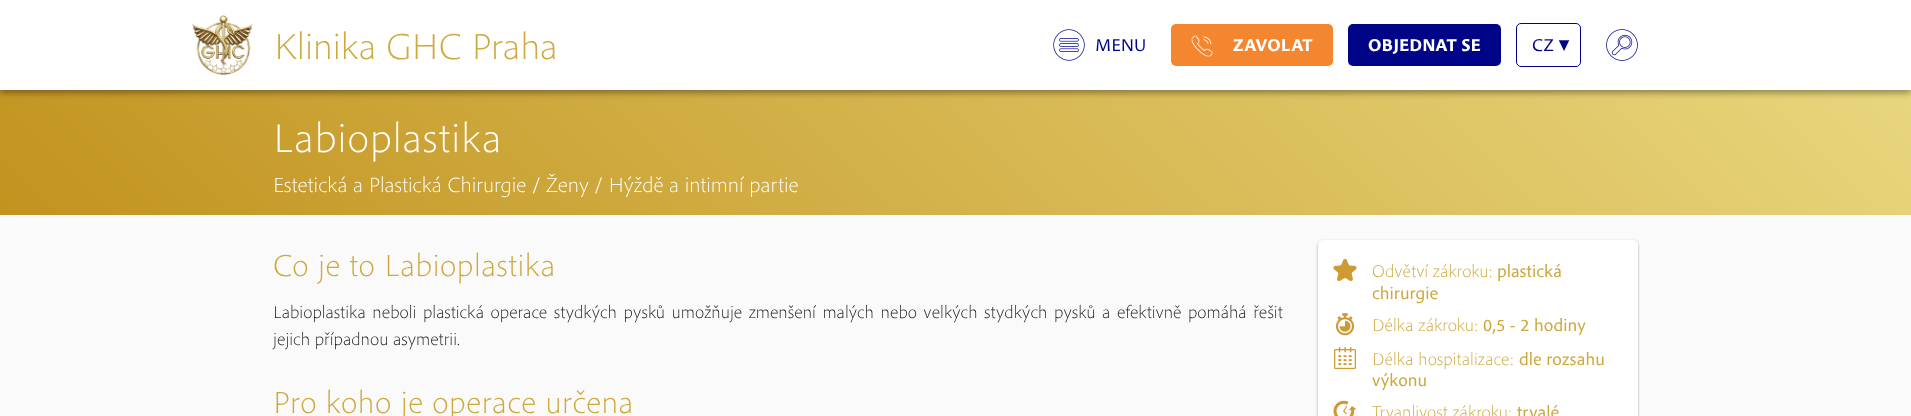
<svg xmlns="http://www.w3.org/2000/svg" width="1911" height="416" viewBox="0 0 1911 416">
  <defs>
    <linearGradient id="g1" gradientUnits="userSpaceOnUse" x1="447" y1="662" x2="1465" y2="-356"><stop offset="0" stop-color="#c2931f"/><stop offset="1" stop-color="#e8d67d"/></linearGradient>
    <filter id="blur1" x="-50%" y="-200%" width="200%" height="500%"><feGaussianBlur stdDeviation="3"/></filter>
    <filter id="blur2" x="-50%" y="-200%" width="200%" height="500%"><feGaussianBlur stdDeviation="1"/></filter>
    <filter id="blur3" x="-50%" y="-200%" width="200%" height="500%"><feGaussianBlur stdDeviation="1.5"/></filter>
  </defs>
  <rect width="100%" height="100%" fill="#fafafa"/>
  <rect x="0" y="90" width="1911" height="125" fill="url(#g1)"/>
  <rect x="0" y="3" width="1911" height="90" fill="#000000" fill-opacity="0.23" filter="url(#blur1)"/>
  <rect x="0" y="3" width="1911" height="90" fill="#000000" fill-opacity="0.16" filter="url(#blur1)"/>
  <rect x="0" y="0" width="1911" height="90" fill="#ffffff"/>
  <image x="192" y="15" width="61" height="60" href="img1.png"/>
  <text x="274" y="59" font-family="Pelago" font-size="38" font-weight="300" fill="#cea93e">Klinika GHC Praha</text>
  <image x="1053" y="29" width="32" height="32" href="img2.png"/>
  <text x="1095" y="51" font-family="Pelago" font-size="18" fill="#000588">MENU</text>
  <rect x="1171" y="24" width="162" height="42" rx="5" fill="#f4862f"/>
  <image x="1191" y="35" width="22" height="22" href="img3.png"/>
  <text x="1233" y="51" font-family="Pelago" font-size="18" font-weight="bold" fill="#ffffff">ZAVOLAT</text>
  <rect x="1348" y="24" width="153" height="42" rx="5" fill="#000588"/>
  <text x="1368" y="51" font-family="Pelago" font-size="18" font-weight="bold" fill="#ffffff">OBJEDNAT SE</text>
  <rect x="1516.5" y="23.5" width="64" height="43" rx="4.5" fill="none" stroke="#000588"/>
  <text x="1532" y="51" font-family="Pelago" font-size="18" fill="#000588">CZ ▼</text>
  <image x="1606" y="29" width="32" height="32" href="img4.png"/>
  <text x="273" y="152" font-family="Pelago" font-size="42" font-weight="300" letter-spacing="1" fill="#ffffff">Labioplastika</text>
  <text x="273" y="192" font-family="Pelago" font-size="21.6" font-weight="300" fill="#ffffff">Estetická a Plastická Chirurgie / Ženy / Hýždě a intimní partie</text>
  <text x="273" y="276" font-family="Pelago" font-size="32" font-weight="300" letter-spacing="0.5" fill="#cea93e">Co je to Labioplastika</text>
  <text x="273" y="318" word-spacing="1.9" font-family="Pelago" font-size="18" font-weight="300" fill="#1c1c1c">Labioplastika neboli plastická operace stydkých pysků umožňuje zmenšení malých nebo velkých stydkých pysků a efektivně pomáhá řešit</text>
  <text x="273" y="345" font-family="Pelago" font-size="18" font-weight="300" fill="#1c1c1c">jejich případnou asymetrii.</text>
  <text x="273" y="413" font-family="Pelago" font-size="32" font-weight="300" letter-spacing="0.5" fill="#cea93e">Pro koho je operace určena</text>
  <rect x="1318" y="241" width="320" height="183" rx="5" fill="#000000" fill-opacity="0.24" filter="url(#blur2)"/>
  <rect x="1318" y="241" width="320" height="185" rx="5" fill="#000000" fill-opacity="0.12" filter="url(#blur3)"/>
  <rect x="1318" y="240" width="320" height="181" rx="5" fill="#ffffff"/>
  <image x="1333" y="259" width="24" height="22" href="img5.png"/>
  <text x="1372" y="277" font-family="Pelago" font-size="18" font-weight="300" fill="#cea93e">Odvětví zákroku:</text>
  <text x="1497" y="277" font-family="Pelago" font-size="18" fill="#cea93e">plastická</text>
  <text x="1372" y="299" font-family="Pelago" font-size="18" fill="#cea93e">chirurgie</text>
  <image x="1335" y="313" width="20" height="23" href="img6.png"/>
  <text x="1372" y="331" font-family="Pelago" font-size="18" font-weight="300" fill="#cea93e">Délka zákroku:</text>
  <text x="1483" y="331" font-family="Pelago" font-size="18" fill="#cea93e">0,5 - 2 hodiny</text>
  <image x="1334" y="347" width="22" height="23" href="img7.png"/>
  <text x="1372" y="365" font-family="Pelago" font-size="18" font-weight="300" fill="#cea93e">Délka hospitalizace:</text>
  <text x="1519" y="365" font-family="Pelago" font-size="18" fill="#cea93e">dle rozsahu</text>
  <text x="1372" y="386" font-family="Pelago" font-size="18" fill="#cea93e">výkonu</text>
  <image x="1333" y="400" width="24" height="16" href="img8.png"/>
  <text x="1372" y="418" font-family="Pelago" font-size="18" font-weight="300" fill="#cea93e">Trvanlivost zákroku:</text>
  <text x="1517" y="418" font-family="Pelago" font-size="18" fill="#cea93e">trvalé</text>
</svg>
